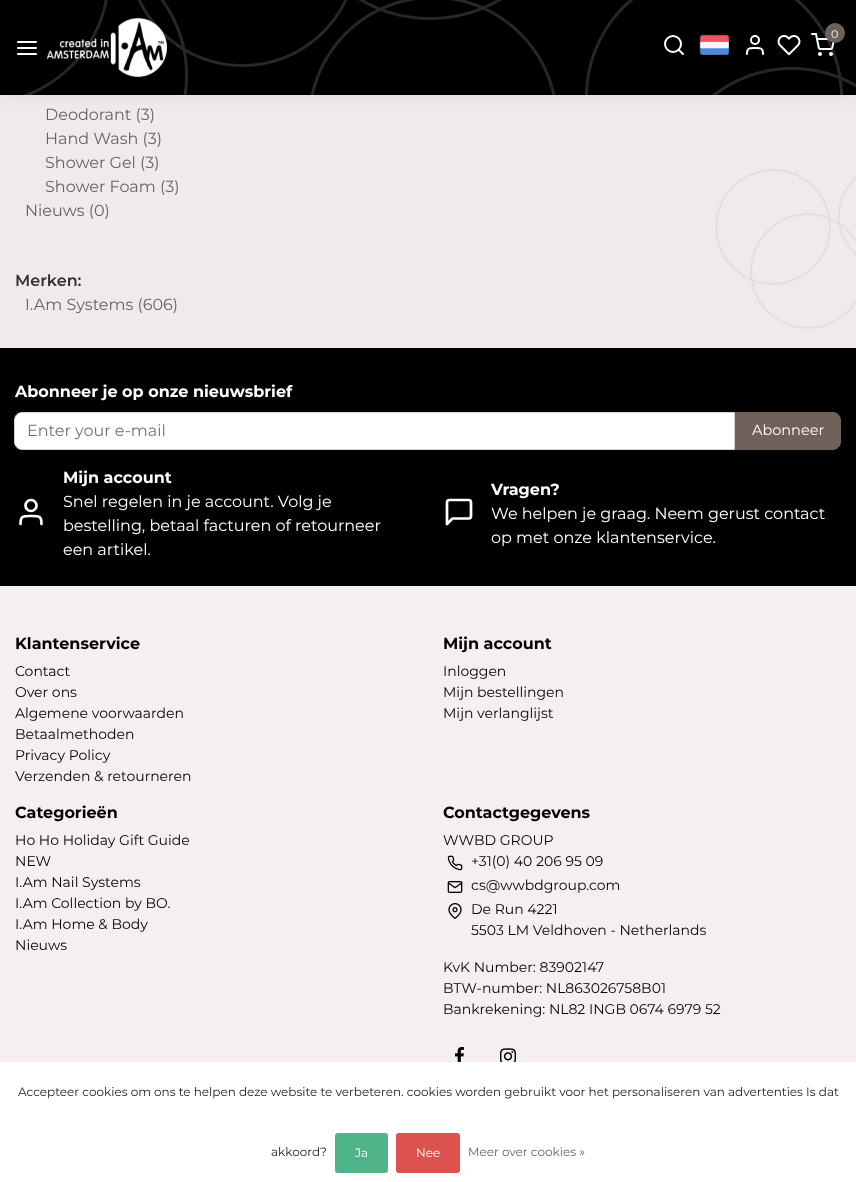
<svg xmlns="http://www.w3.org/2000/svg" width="856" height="1182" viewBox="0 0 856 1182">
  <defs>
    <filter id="blur1" x="-50%" y="-200%" width="200%" height="500%"><feGaussianBlur stdDeviation="8"/></filter>
  </defs>
  <rect width="100%" height="100%" fill="#ffffff"/>
  <image x="0" y="95" width="856" height="253" href="img1.png"/>
  <rect x="0" y="2" width="856" height="95" fill="#000000" fill-opacity="0.05" filter="url(#blur1)"/>
  <rect x="0" y="0" width="856" height="95" fill="#000000"/>
  <image x="23" y="0" width="833" height="95" href="img2.png"/>
  <path d="M18 48H36M18 42H36M18 54H36" fill="none" stroke="#ffffff" stroke-width="2" stroke-linecap="round" stroke-linejoin="round"/>
  <image x="47" y="17" width="120" height="61" href="img3.png"/>
  <circle cx="673" cy="44" r="8" fill="none" stroke="#ffffff" stroke-width="2"/>
  <path d="M683 54L678.5 49.5" fill="none" stroke="#ffffff" stroke-width="2" stroke-linecap="round" stroke-linejoin="round"/>
  <image x="699" y="34" width="30" height="21" href="img4.png"/>
  <path d="M763 54C763 47.5 760.5 48 755 48C749.5 48 747 47.5 747 54" fill="none" stroke="#ffffff" stroke-width="2" stroke-linecap="round" stroke-linejoin="round"/>
  <circle cx="755" cy="40" r="4" fill="none" stroke="#ffffff" stroke-width="2"/>
  <image x="777" y="35" width="24" height="21" href="img5.png"/>
  <image x="811" y="33" width="24" height="23" href="img6.png"/>
  <circle cx="835" cy="33" r="10" fill="#6f615a"/>
  <text x="831" y="38" font-family="Montserrat" font-size="11" fill="#ffffff">0</text>
  <text x="45" y="120" font-family="Montserrat" font-size="16" fill="#666666">Deodorant (3)</text>
  <text x="45" y="144" font-family="Montserrat" font-size="16" fill="#666666">Hand Wash (3)</text>
  <text x="45" y="168" font-family="Montserrat" font-size="16" fill="#666666">Shower Gel (3)</text>
  <text x="45" y="192" font-family="Montserrat" font-size="16" fill="#666666">Shower Foam (3)</text>
  <text x="25" y="216" font-family="Montserrat" font-size="16" fill="#666666">Nieuws (0)</text>
  <text x="15" y="286" font-family="Montserrat" font-size="16" font-weight="600" fill="#333333">Merken:</text>
  <text x="25" y="310" font-family="Montserrat" font-size="16" fill="#666666">I.Am Systems (606)</text>
  <rect x="0" y="348" width="856" height="238" fill="#000000"/>
  <text x="15" y="397" font-family="Montserrat" font-size="16" font-weight="bold" fill="#ffffff">Abonneer je op onze nieuwsbrief</text>
  <path d="M22 412.5H734.5V449.5H22C18 449.5 14.5 446 14.5 442V420C14.5 416 18 412.5 22 412.5Z" fill="#ffffff" stroke="#ced4da"/>
  <text x="27" y="436" font-family="Montserrat" font-size="16" fill="#6c757d">Enter your e-mail</text>
  <path d="M735.5 412.5H833C837 412.5 840.5 416 840.5 420V442C840.5 446 837 449.5 833 449.5H735.5Z" fill="#6f615a" stroke="#6f615a"/>
  <text x="752" y="435" font-family="Montserrat" font-size="14.5" fill="#ffffff">Abonneer</text>
  <path d="M41.5 524C41.5 515.5 38.5 516 31 516C23.5 516 20.5 515.5 20.5 524" fill="none" stroke="#ffffff" stroke-width="2.7" stroke-linecap="round" stroke-linejoin="round"/>
  <circle cx="31" cy="505.5" r="5.5" fill="none" stroke="#ffffff" stroke-width="2.7"/>
  <text x="63" y="483" font-family="Montserrat" font-size="16" font-weight="bold" fill="#ffffff">Mijn account</text>
  <text x="63" y="507" font-family="Montserrat" font-size="16" fill="#ffffff">Snel regelen in je account. Volg je</text>
  <text x="63" y="531" font-family="Montserrat" font-size="16" fill="#ffffff">bestelling, betaal facturen of retourneer</text>
  <text x="63" y="555" font-family="Montserrat" font-size="16" fill="#ffffff">een artikel.</text>
  <path d="M471 516C471 517.5 470 518.5 468.5 518.5H452.5L447 524V502.5C447 501 448 500 449.5 500H468.5C470 500 471 501 471 502.5Z" fill="none" stroke="#ffffff" stroke-width="2.7" stroke-linecap="round" stroke-linejoin="round"/>
  <text x="491" y="495" font-family="Montserrat" font-size="16" font-weight="bold" fill="#ffffff">Vragen?</text>
  <text x="491" y="519" font-family="Montserrat" font-size="16" fill="#ffffff">We helpen je graag. Neem gerust contact</text>
  <text x="491" y="543" font-family="Montserrat" font-size="16" fill="#ffffff">op met onze klantenservice.</text>
  <rect x="0" y="586" width="856" height="476" fill="#f4f0f0"/>
  <text x="15" y="649" font-family="Montserrat" font-size="16" font-weight="bold" fill="#000000">Klantenservice</text>
  <text x="15" y="676" font-family="Montserrat" font-size="14" fill="#000000">Contact</text>
  <text x="15" y="697" font-family="Montserrat" font-size="14" fill="#000000">Over ons</text>
  <text x="15" y="718" font-family="Montserrat" font-size="14" fill="#000000">Algemene voorwaarden</text>
  <text x="15" y="739" font-family="Montserrat" font-size="14" fill="#000000">Betaalmethoden</text>
  <text x="15" y="760" font-family="Montserrat" font-size="14" fill="#000000">Privacy Policy</text>
  <text x="15" y="781" font-family="Montserrat" font-size="14" fill="#000000">Verzenden &amp; retourneren</text>
  <text x="443" y="649" font-family="Montserrat" font-size="16" font-weight="bold" fill="#000000">Mijn account</text>
  <text x="443" y="676" font-family="Montserrat" font-size="14" fill="#000000">Inloggen</text>
  <text x="443" y="697" font-family="Montserrat" font-size="14" fill="#000000">Mijn bestellingen</text>
  <text x="443" y="718" font-family="Montserrat" font-size="14" fill="#000000">Mijn verlanglijst</text>
  <text x="15" y="818" font-family="Montserrat" font-size="16" font-weight="bold" fill="#000000">Categorieën</text>
  <text x="15" y="845" font-family="Montserrat" font-size="14" fill="#000000">Ho Ho Holiday Gift Guide</text>
  <text x="15" y="866" font-family="Montserrat" font-size="14" fill="#000000">NEW</text>
  <text x="15" y="887" font-family="Montserrat" font-size="14" fill="#000000">I.Am Nail Systems</text>
  <text x="15" y="908" font-family="Montserrat" font-size="14" fill="#000000">I.Am Collection by BO.</text>
  <text x="15" y="929" font-family="Montserrat" font-size="14" fill="#000000">I.Am Home &amp; Body</text>
  <text x="15" y="950" font-family="Montserrat" font-size="14" fill="#000000">Nieuws</text>
  <text x="443" y="818" font-family="Montserrat" font-size="16" font-weight="bold" fill="#000000">Contactgegevens</text>
  <text x="443" y="845" font-family="Montserrat" font-size="14" fill="#000000">WWBD GROUP</text>
  <image x="447" y="855" width="16" height="16" href="img7.png"/>
  <text x="471" y="866" font-family="Montserrat" font-size="14" fill="#000000">+31(0) 40 206 95 09</text>
  <image x="447" y="881" width="16" height="12" href="img8.png"/>
  <text x="471" y="890" font-family="Montserrat" font-size="14" fill="#000000">cs@wwbdgroup.com</text>
  <image x="448" y="903" width="14" height="16" href="img9.png"/>
  <text x="471" y="914" font-family="Montserrat" font-size="14" fill="#000000">De Run 4221</text>
  <text x="471" y="935" font-family="Montserrat" font-size="14" fill="#000000">5503 LM Veldhoven - Netherlands</text>
  <text x="443" y="972" font-family="Montserrat" font-size="14" fill="#000000">KvK Number: 83902147</text>
  <text x="443" y="993" font-family="Montserrat" font-size="14" fill="#000000">BTW-number: NL863026758B01</text>
  <text x="443" y="1014" font-family="Montserrat" font-size="14" fill="#000000">Bankrekening: NL82 INGB 0674 6979 52</text>
  <image x="455" y="1047" width="9" height="15" href="img10.png"/>
  <image x="500" y="1048" width="16" height="14" href="img11.png"/>
  <text x="18" y="1096" font-family="Montserrat" font-size="12" fill="#222222">Accepteer cookies om ons te helpen deze website te verbeteren. cookies worden gebruikt voor het personaliseren van advertenties Is dat</text>
  <text x="271" y="1156" font-family="Montserrat" font-size="12" fill="#222222">akkoord?</text>
  <rect x="335" y="1133" width="53" height="40" rx="3" fill="#50b48a"/>
  <text x="355" y="1157" font-family="Montserrat" font-size="12" fill="#ffffff">Ja</text>
  <rect x="396" y="1133" width="64" height="40" rx="3" fill="#db524e"/>
  <text x="416" y="1157" font-family="Montserrat" font-size="12" fill="#ffffff">Nee</text>
  <text x="468" y="1156" font-family="Montserrat" font-size="12" fill="#666666">Meer over cookies »</text>
</svg>
